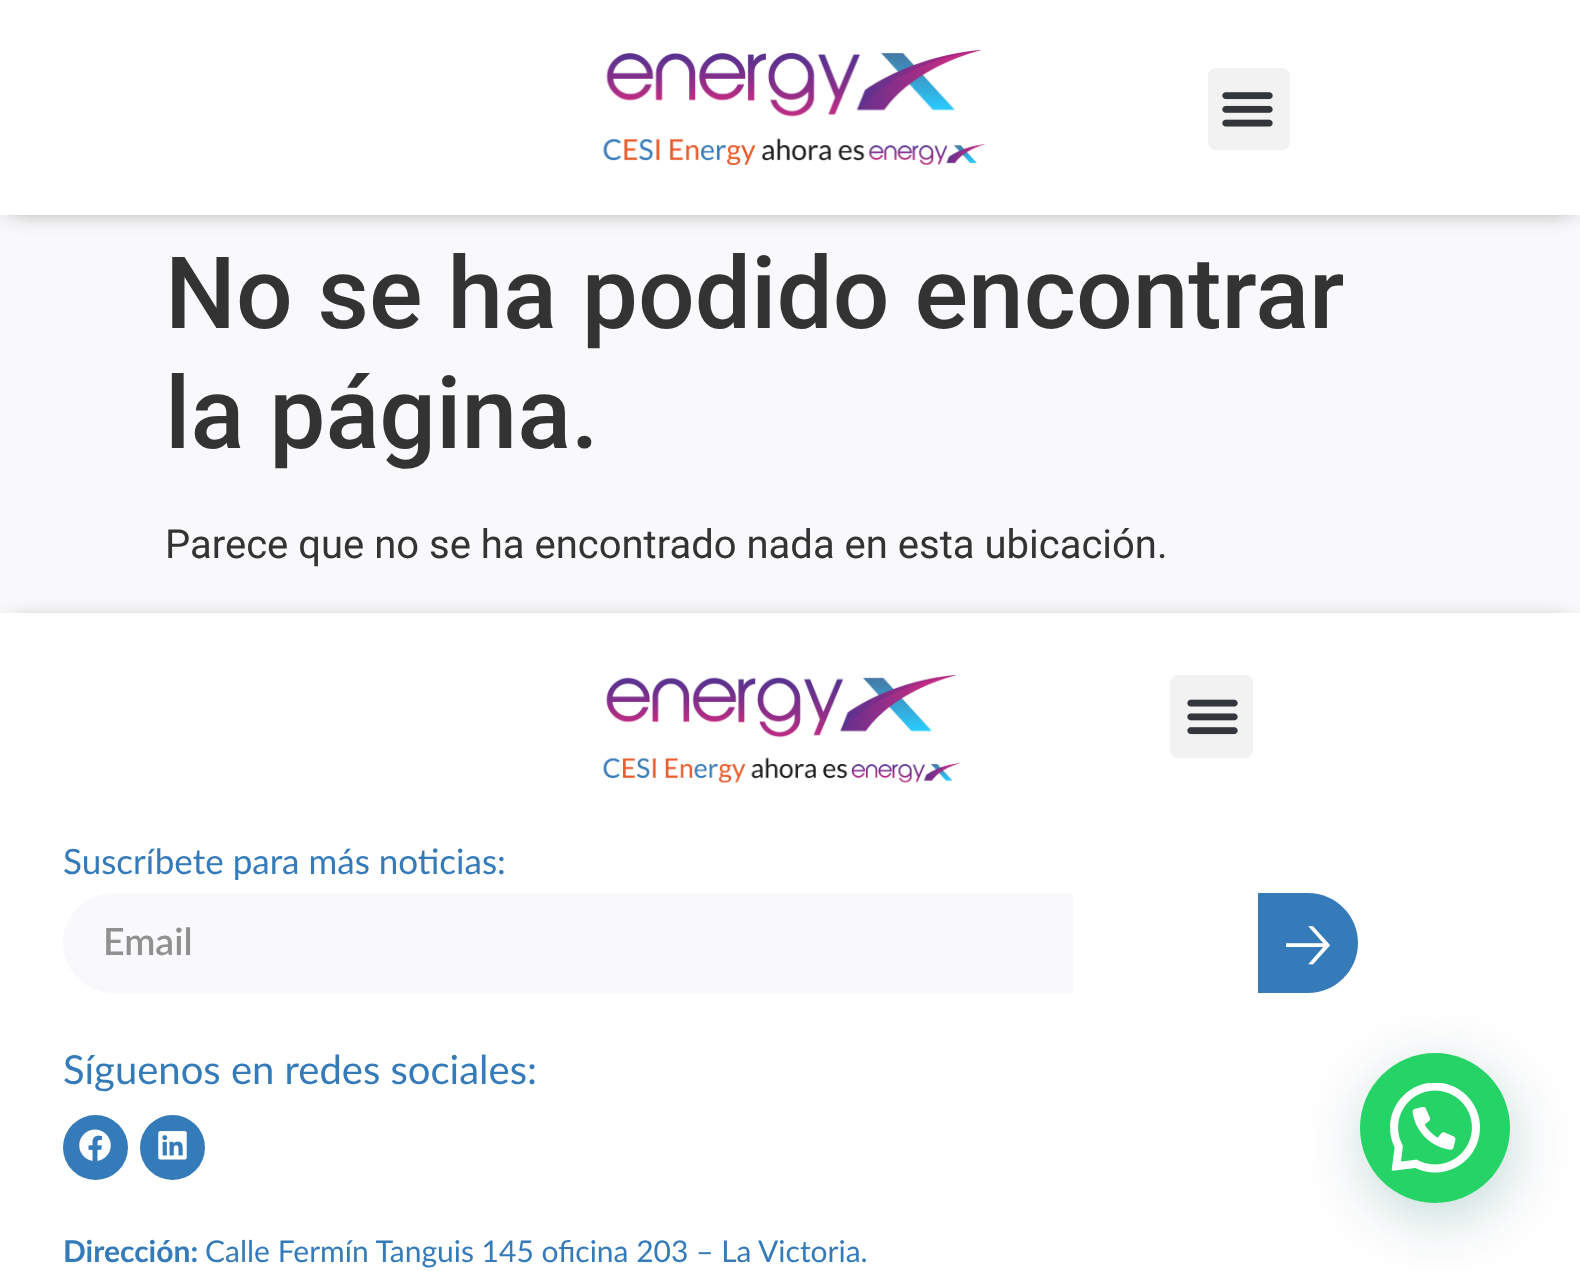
<svg xmlns="http://www.w3.org/2000/svg" width="1580" height="1271" viewBox="0 0 1580 1271">
  <defs>
    <filter id="blur1" x="-50%" y="-200%" width="200%" height="500%"><feGaussianBlur stdDeviation="12.5"/></filter>
    <filter id="blur2" x="-50%" y="-200%" width="200%" height="500%"><feGaussianBlur stdDeviation="30"/></filter>
  </defs>
  <rect width="100%" height="100%" fill="#f9f9fb"/>
  <rect x="8" y="8" width="1565" height="200" fill="#000000" fill-opacity="0.5" filter="url(#blur1)"/>
  <rect x="0" y="0" width="1580" height="215" fill="#ffffff"/>
  <image x="603" y="50" width="382" height="115" href="img1.png"/>
  <rect x="1208" y="68" width="82" height="82" rx="8" fill="#f2f2f2"/>
  <image x="1222" y="92" width="51" height="35" href="img2.png"/>
  <text x="165" y="328" font-family="Roboto" font-size="100" font-weight="500" fill="#333333">No se ha podido encontrar</text>
  <text x="165" y="448" font-family="Roboto" font-size="100" font-weight="500" fill="#333333">la página.</text>
  <text x="165" y="558" font-family="Roboto" font-size="40" fill="#333333">Parece que no se ha encontrado nada en esta ubicación.</text>
  <rect x="13" y="625" width="1555" height="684" fill="#000000" fill-opacity="0.5" filter="url(#blur1)"/>
  <rect x="0" y="613" width="1580" height="658" fill="#ffffff"/>
  <image x="603" y="675" width="357" height="108" href="img3.png"/>
  <rect x="1170" y="675" width="83" height="83" rx="8" fill="#f2f2f2"/>
  <image x="1187" y="699" width="51" height="36" href="img4.png"/>
  <text x="63" y="874" font-family="Lato" font-size="35" fill="#357bba">Suscríbete para más noticias:</text>
  <path d="M113 893H1073V993H113C85.5 993 63 970.5 63 943C63 915.5 85.5 893 113 893Z" fill="#f9f9fb"/>
  <text x="103" y="955" font-family="Lato" font-size="37.5" font-weight="600" fill="#909091">Email</text>
  <path d="M1258 893H1308C1335.5 893 1358 915.5 1358 943C1358 970.5 1335.5 993 1308 993H1258Z" fill="#357bba"/>
  <text x="1283" y="965" font-family="'Noto Sans Symbols 2'" font-size="62" fill="#ffffff">🡢</text>
  <text x="63" y="1084" font-family="Lato" font-size="40" fill="#357bba">Síguenos en redes sociales:</text>
  <circle cx="95.5" cy="1147.5" r="32.5" fill="#357bba"/>
  <image x="79" y="1129" width="32" height="32" href="img5.png"/>
  <circle cx="172.5" cy="1147.5" r="32.5" fill="#357bba"/>
  <image x="158" y="1131" width="29" height="29" href="img6.png"/>
  <text x="63" y="1262" font-family="Lato" font-size="30" font-weight="bold" fill="#357bba">Dirección:</text>
  <text x="205" y="1262" font-family="Lato" font-size="30" fill="#357bba">Calle Fermín Tanguis 145 oficina 203 – La Victoria.</text>
  <rect x="1363" y="1068" width="150" height="150" rx="75" fill="#075e54" fill-opacity="0.24" filter="url(#blur2)"/>
  <circle cx="1435" cy="1128" r="75" fill="#25d366"/>
  <image x="1390" y="1083" width="90" height="90" href="img7.png"/>
</svg>
